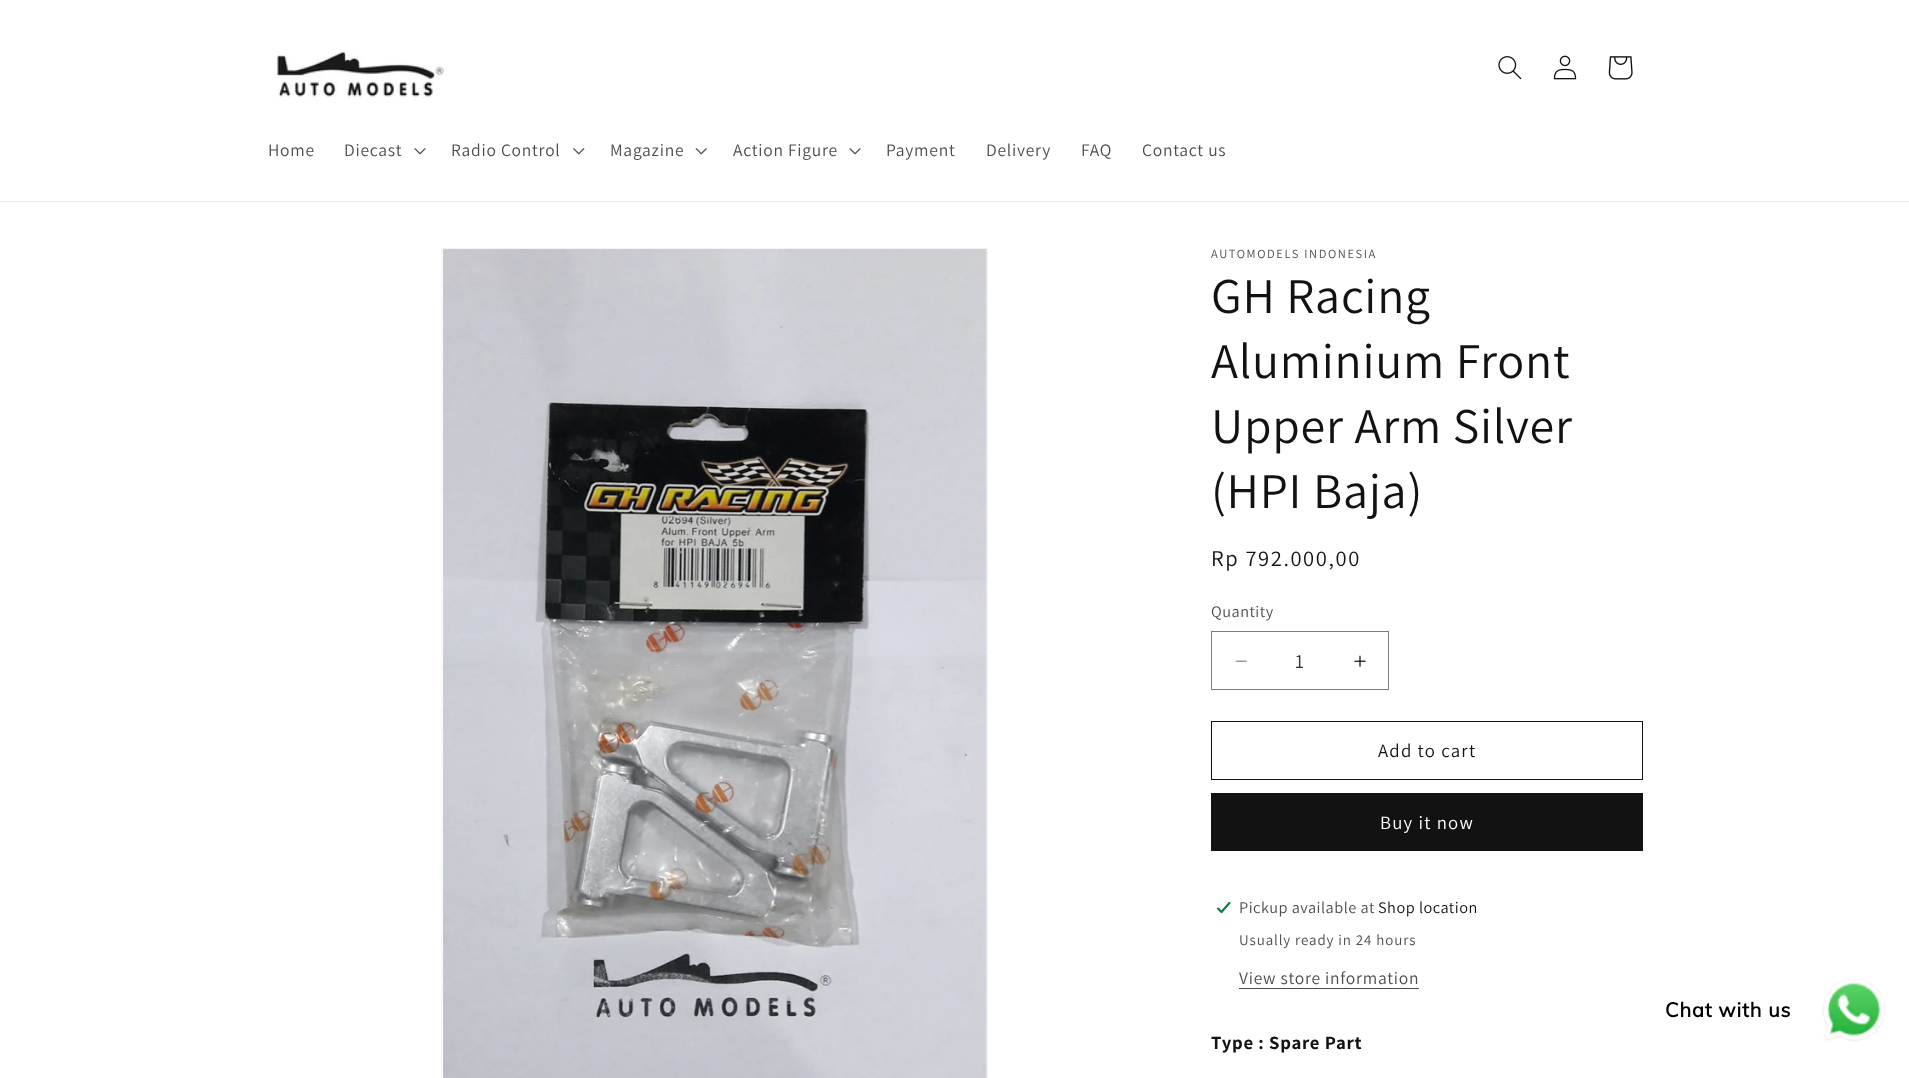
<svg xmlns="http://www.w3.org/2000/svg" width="1909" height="1078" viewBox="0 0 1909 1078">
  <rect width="100%" height="100%" fill="#ffffff"/>
  <rect x="0" y="201" width="1909" height="1" fill="#ececec"/>
  <image x="277" y="51" width="170" height="49" href="img1.png"/>
  <image x="1498" y="56" width="24" height="24" href="img2.png"/>
  <image x="1553" y="55" width="24" height="25" href="img3.png"/>
  <image x="1608" y="56" width="25" height="24" href="img4.png"/>
  <text x="268" y="156" font-family="Assistant" font-size="17.5" letter-spacing="0.75" fill="#4d4d4d">Home</text>
  <text x="344" y="156" font-family="Assistant" font-size="17.5" letter-spacing="0.75" fill="#4d4d4d">Diecast</text>
  <image x="414" y="148" width="12" height="7" href="img5.png"/>
  <text x="451" y="156" font-family="Assistant" font-size="17.5" letter-spacing="0.75" fill="#4d4d4d">Radio Control</text>
  <image x="573" y="148" width="12" height="7" href="img6.png"/>
  <text x="610" y="156" font-family="Assistant" font-size="17.5" letter-spacing="0.75" fill="#4d4d4d">Magazine</text>
  <image x="695" y="148" width="12" height="7" href="img7.png"/>
  <text x="733" y="156" font-family="Assistant" font-size="17.5" letter-spacing="0.75" fill="#4d4d4d">Action Figure</text>
  <image x="849" y="148" width="12" height="7" href="img5.png"/>
  <text x="886" y="156" font-family="Assistant" font-size="17.5" letter-spacing="0.75" fill="#4d4d4d">Payment</text>
  <text x="986" y="156" font-family="Assistant" font-size="17.5" letter-spacing="0.75" fill="#4d4d4d">Delivery</text>
  <text x="1081" y="156" font-family="Assistant" font-size="17.5" letter-spacing="0.75" fill="#4d4d4d">FAQ</text>
  <text x="1142" y="156" font-family="Assistant" font-size="17.5" letter-spacing="0.75" fill="#4d4d4d">Contact us</text>
  <rect x="441.5" y="248.5" width="546" height="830" fill="none" stroke="#f3f3f3"/>
  <image x="443" y="249" width="544" height="829" href="img8.png"/>
  <text x="1211" y="258" font-family="Assistant" font-size="12.5" letter-spacing="1.6" fill="#4d4d4d">AUTOMODELS INDONESIA</text>
  <text x="1211" y="313" font-family="Assistant" font-size="50" letter-spacing="0.75" fill="#121212">GH Racing</text>
  <text x="1211" y="378" font-family="Assistant" font-size="50" letter-spacing="0.75" fill="#121212">Aluminium Front</text>
  <text x="1211" y="443" font-family="Assistant" font-size="50" letter-spacing="0.75" fill="#121212">Upper Arm Silver</text>
  <text x="1211" y="508" font-family="Assistant" font-size="50" letter-spacing="0.75" fill="#121212">(HPI Baja)</text>
  <text x="1211" y="566" font-family="Assistant" font-size="22.5" letter-spacing="1.6" fill="#121212">Rp 792.000,00</text>
  <text x="1211" y="617" font-family="Assistant" font-size="16.25" letter-spacing="0.5" fill="#4d4d4d">Quantity</text>
  <image x="1235" y="660" width="12" height="2" href="img9.png"/>
  <image x="1354" y="655" width="12" height="12" href="img10.png"/>
  <rect x="1211.5" y="631.5" width="177" height="58" fill="none" stroke="#7d7d7d"/>
  <text x="1295" y="668" font-family="Assistant" font-size="20" fill="#363636">1</text>
  <rect x="1211.5" y="721.5" width="431" height="58" fill="none" stroke="#121212"/>
  <text x="1378" y="757" font-family="Assistant" font-size="18.75" letter-spacing="1.25" fill="#121212">Add to cart</text>
  <rect x="1211" y="793" width="432" height="58" fill="#121212"/>
  <text x="1380" y="829" font-family="Assistant" font-size="18.75" letter-spacing="1.25" fill="#ffffff">Buy it now</text>
  <image x="1216" y="901" width="15" height="13" href="img11.png"/>
  <text x="1239" y="913" font-family="Assistant" font-size="16.25" letter-spacing="0.5" fill="#4d4d4d">Pickup available at</text>
  <text x="1378" y="913" font-family="Assistant" font-size="16.25" letter-spacing="0.5" fill="#121212">Shop location</text>
  <text x="1239" y="945" font-family="Assistant" font-size="15" letter-spacing="0.9" fill="#4d4d4d">Usually ready in 24 hours</text>
  <text x="1239" y="984" font-family="Assistant" font-size="17.5" letter-spacing="0.75" fill="#4d4d4d">View store information</text>
  <rect x="1239" y="988" width="180" height="1" fill="#4d4d4d"/>
  <text x="1211" y="1049" font-family="Assistant" font-size="18.75" font-weight="bold" letter-spacing="0.75" fill="#121212">Type : Spare Part</text>
  <image x="1822" y="978" width="63" height="64" href="img12.png"/>
  <text x="1665" y="1017" font-family="Muli" font-size="20" font-weight="bold" letter-spacing="0.75" fill="#000000">Chat with us</text>
</svg>
